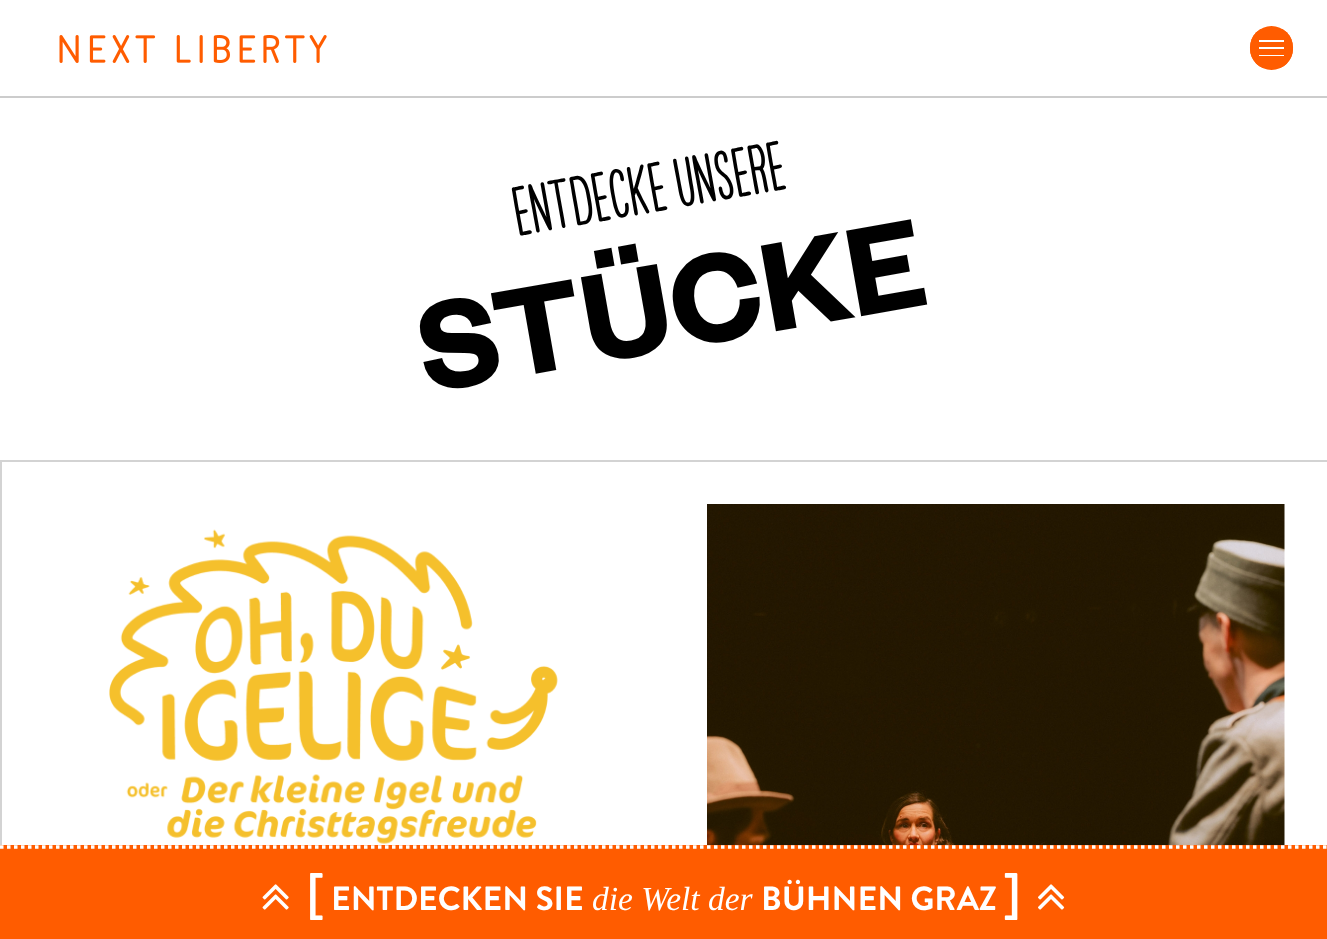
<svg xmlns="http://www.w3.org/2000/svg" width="1327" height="939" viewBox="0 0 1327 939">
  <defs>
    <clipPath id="clip1"><rect x="1250" y="26" width="43" height="44" rx="21.5"/></clipPath>
  </defs>
  <rect width="100%" height="100%" fill="#ffffff"/>
  <rect x="0" y="96" width="1327" height="2" fill="#cccccc"/>
  <image x="59" y="35" width="268" height="28" href="img1.png"/>
  <rect x="1250" y="26" width="43" height="44" rx="21.5" fill="#ff5c00"/>
  <g clip-path="url(#clip1)">
    <rect x="1250" y="29" width="43" height="39" fill="#ff5c00"/>
  </g>
  <rect x="1259" y="40" width="25" height="2" fill="#ffffff"/>
  <rect x="1259" y="47" width="25" height="2" fill="#ffffff"/>
  <rect x="1259" y="55" width="25" height="1" fill="#ffffff"/>
  <text x="519" y="236" transform="rotate(-10 519 236)" font-family="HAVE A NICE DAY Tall" font-size="61.5" font-weight="bold" fill="#000000">ENTDECKE UNSERE</text>
  <text x="426" y="393" transform="rotate(-10 426 393)" font-family="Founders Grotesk" font-size="138" font-weight="600" fill="#000000">STÜCKE</text>
  <rect x="0" y="460" width="2" height="385" fill="#d3d3d3"/>
  <rect x="2" y="460" width="1325" height="2" fill="#d3d3d3"/>
  <image x="109" y="529" width="449" height="315" href="img2.png"/>
  <image x="707" y="504" width="578" height="341" href="img3.png"/>
  <rect x="0" y="845" width="1327" height="94" fill="#ff5c00"/>
  <path d="M0 847H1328" fill="none" stroke="#ffffff" stroke-width="3.5" stroke-dasharray="3.5 3.5"/>
  <image x="262" y="884" width="27" height="26" href="img4.png"/>
  <text x="307" y="906" font-family="Brandon Grotesque" font-size="47" font-weight="bold" fill="#ffffff">[</text>
  <text x="331" y="910" font-family="Brandon Grotesque" font-size="33.5" font-weight="bold" fill="#ffffff">ENTDECKEN SIE</text>
  <text x="592" y="910" font-family="Liberation Serif" font-size="33.5" font-style="italic" fill="#ffffff">die Welt der</text>
  <text x="761" y="910" font-family="Brandon Grotesque" font-size="33.5" font-weight="bold" fill="#ffffff">BÜHNEN GRAZ</text>
  <text x="1004" y="906" font-family="Brandon Grotesque" font-size="47" font-weight="bold" fill="#ffffff">]</text>
  <image x="1038" y="884" width="27" height="26" href="img5.png"/>
</svg>
